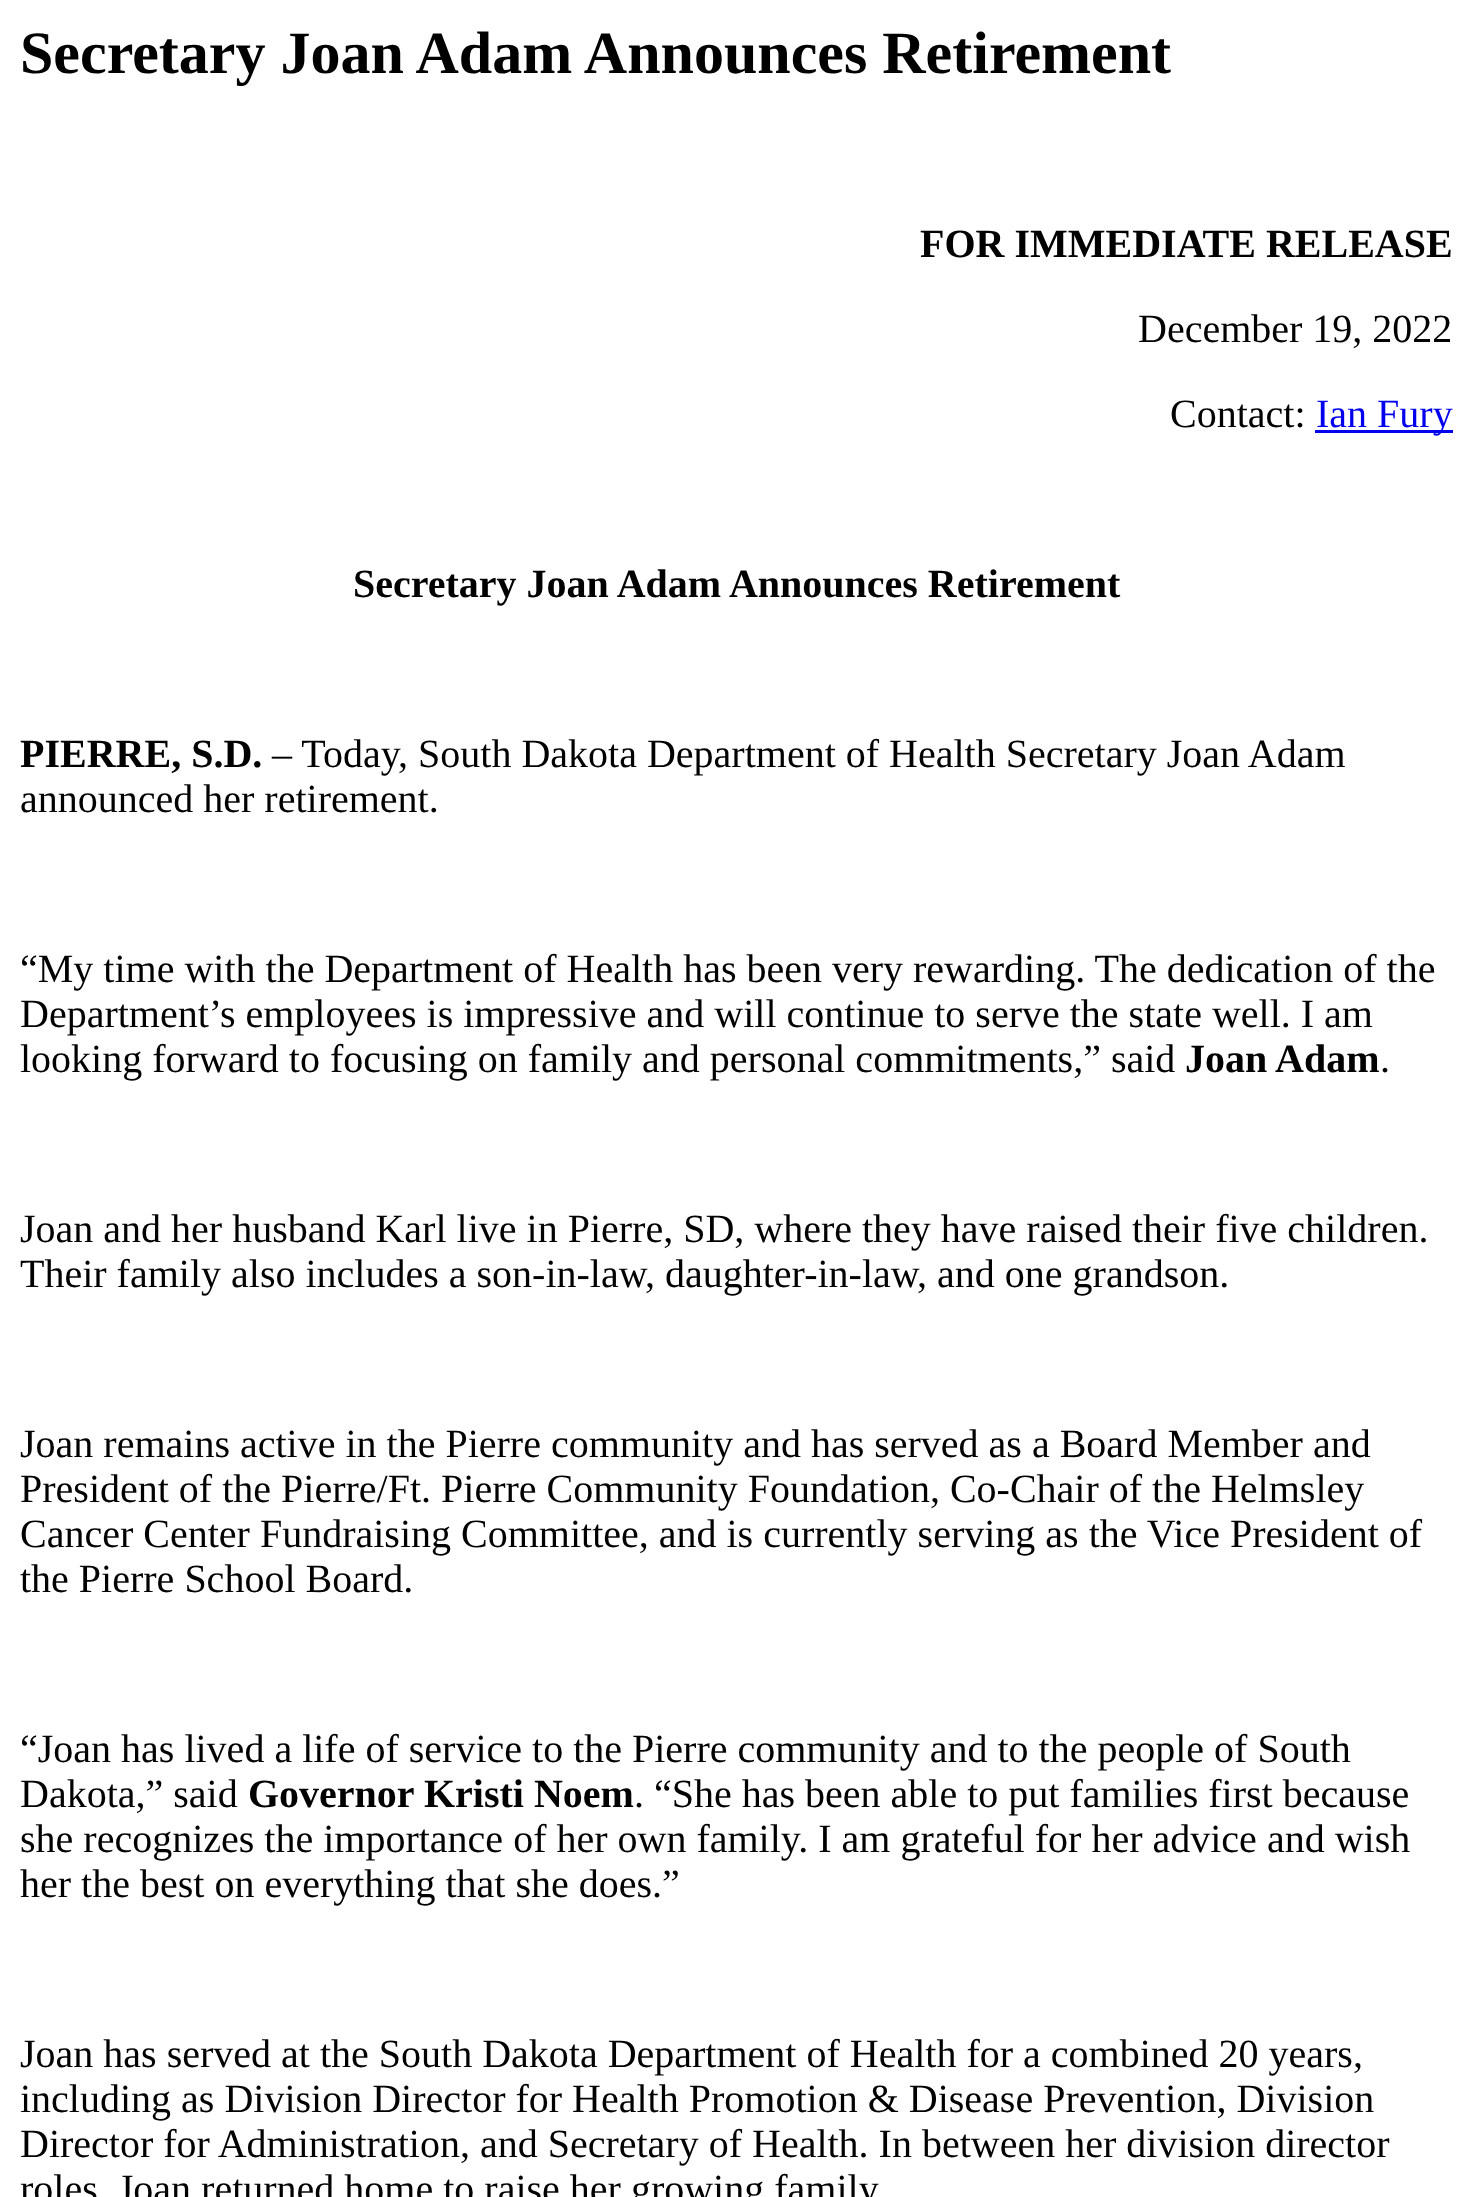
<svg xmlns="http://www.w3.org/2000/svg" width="1471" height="2197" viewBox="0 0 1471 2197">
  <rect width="100%" height="100%" fill="#ffffff"/>
  <text x="20" y="73" font-family="Liberation Serif" font-size="60" font-weight="bold" fill="#000000">Secretary Joan Adam Announces Retirement</text>
  <text x="920" y="257" font-family="Liberation Serif" font-size="40" font-weight="bold" fill="#000000">FOR IMMEDIATE RELEASE</text>
  <text x="1138" y="342" font-family="Liberation Serif" font-size="40" fill="#000000">December 19, 2022</text>
  <text x="1170" y="427" font-family="Liberation Serif" font-size="40" fill="#000000">Contact:</text>
  <rect x="1315" y="430" width="138" height="3" fill="#0000ee"/>
  <text x="1316" y="427" font-family="Liberation Serif" font-size="40" fill="#0000ee">Ian Fury</text>
  <text x="353" y="597" font-family="Liberation Serif" font-size="40" font-weight="bold" fill="#000000">Secretary Joan Adam Announces Retirement</text>
  <text x="20" y="767" font-family="Liberation Serif" font-size="40" font-weight="bold" fill="#000000">PIERRE, S.D.</text>
  <text x="272" y="767" font-family="Liberation Serif" font-size="40" fill="#000000">– Today, South Dakota Department of Health Secretary Joan Adam</text>
  <text x="20" y="812" font-family="Liberation Serif" font-size="40" fill="#000000">announced her retirement.</text>
  <text x="20" y="982" font-family="Liberation Serif" font-size="40" fill="#000000">“My time with the Department of Health has been very rewarding. The dedication of the</text>
  <text x="20" y="1027" font-family="Liberation Serif" font-size="40" fill="#000000">Department’s employees is impressive and will continue to serve the state well. I am</text>
  <text x="20" y="1072" font-family="Liberation Serif" font-size="40" fill="#000000">looking forward to focusing on family and personal commitments,” said</text>
  <text x="1185" y="1072" font-family="Liberation Serif" font-size="40" font-weight="bold" fill="#000000">Joan Adam</text>
  <text x="1380" y="1072" font-family="Liberation Serif" font-size="40" fill="#000000">.</text>
  <text x="20" y="1242" font-family="Liberation Serif" font-size="40" fill="#000000">Joan and her husband Karl live in Pierre, SD, where they have raised their five children.</text>
  <text x="20" y="1287" font-family="Liberation Serif" font-size="40" fill="#000000">Their family also includes a son-in-law, daughter-in-law, and one grandson.</text>
  <text x="20" y="1457" font-family="Liberation Serif" font-size="40" fill="#000000">Joan remains active in the Pierre community and has served as a Board Member and</text>
  <text x="20" y="1502" font-family="Liberation Serif" font-size="40" fill="#000000">President of the Pierre/Ft. Pierre Community Foundation, Co-Chair of the Helmsley</text>
  <text x="20" y="1547" font-family="Liberation Serif" font-size="40" fill="#000000">Cancer Center Fundraising Committee, and is currently serving as the Vice President of</text>
  <text x="20" y="1592" font-family="Liberation Serif" font-size="40" fill="#000000">the Pierre School Board.</text>
  <text x="20" y="1762" font-family="Liberation Serif" font-size="40" fill="#000000">“Joan has lived a life of service to the Pierre community and to the people of South</text>
  <text x="20" y="1807" font-family="Liberation Serif" font-size="40" fill="#000000">Dakota,” said</text>
  <text x="248" y="1807" font-family="Liberation Serif" font-size="40" font-weight="bold" fill="#000000">Governor Kristi Noem</text>
  <text x="634" y="1807" font-family="Liberation Serif" font-size="40" fill="#000000">. “She has been able to put families first because</text>
  <text x="20" y="1852" font-family="Liberation Serif" font-size="40" fill="#000000">she recognizes the importance of her own family. I am grateful for her advice and wish</text>
  <text x="20" y="1897" font-family="Liberation Serif" font-size="40" fill="#000000">her the best on everything that she does.”</text>
  <text x="20" y="2067" font-family="Liberation Serif" font-size="40" fill="#000000">Joan has served at the South Dakota Department of Health for a combined 20 years,</text>
  <text x="20" y="2112" font-family="Liberation Serif" font-size="40" fill="#000000">including as Division Director for Health Promotion &amp; Disease Prevention, Division</text>
  <text x="20" y="2157" font-family="Liberation Serif" font-size="40" fill="#000000">Director for Administration, and Secretary of Health. In between her division director</text>
  <text x="20" y="2202" font-family="Liberation Serif" font-size="40" fill="#000000">roles, Joan returned home to raise her growing family.</text>
</svg>
